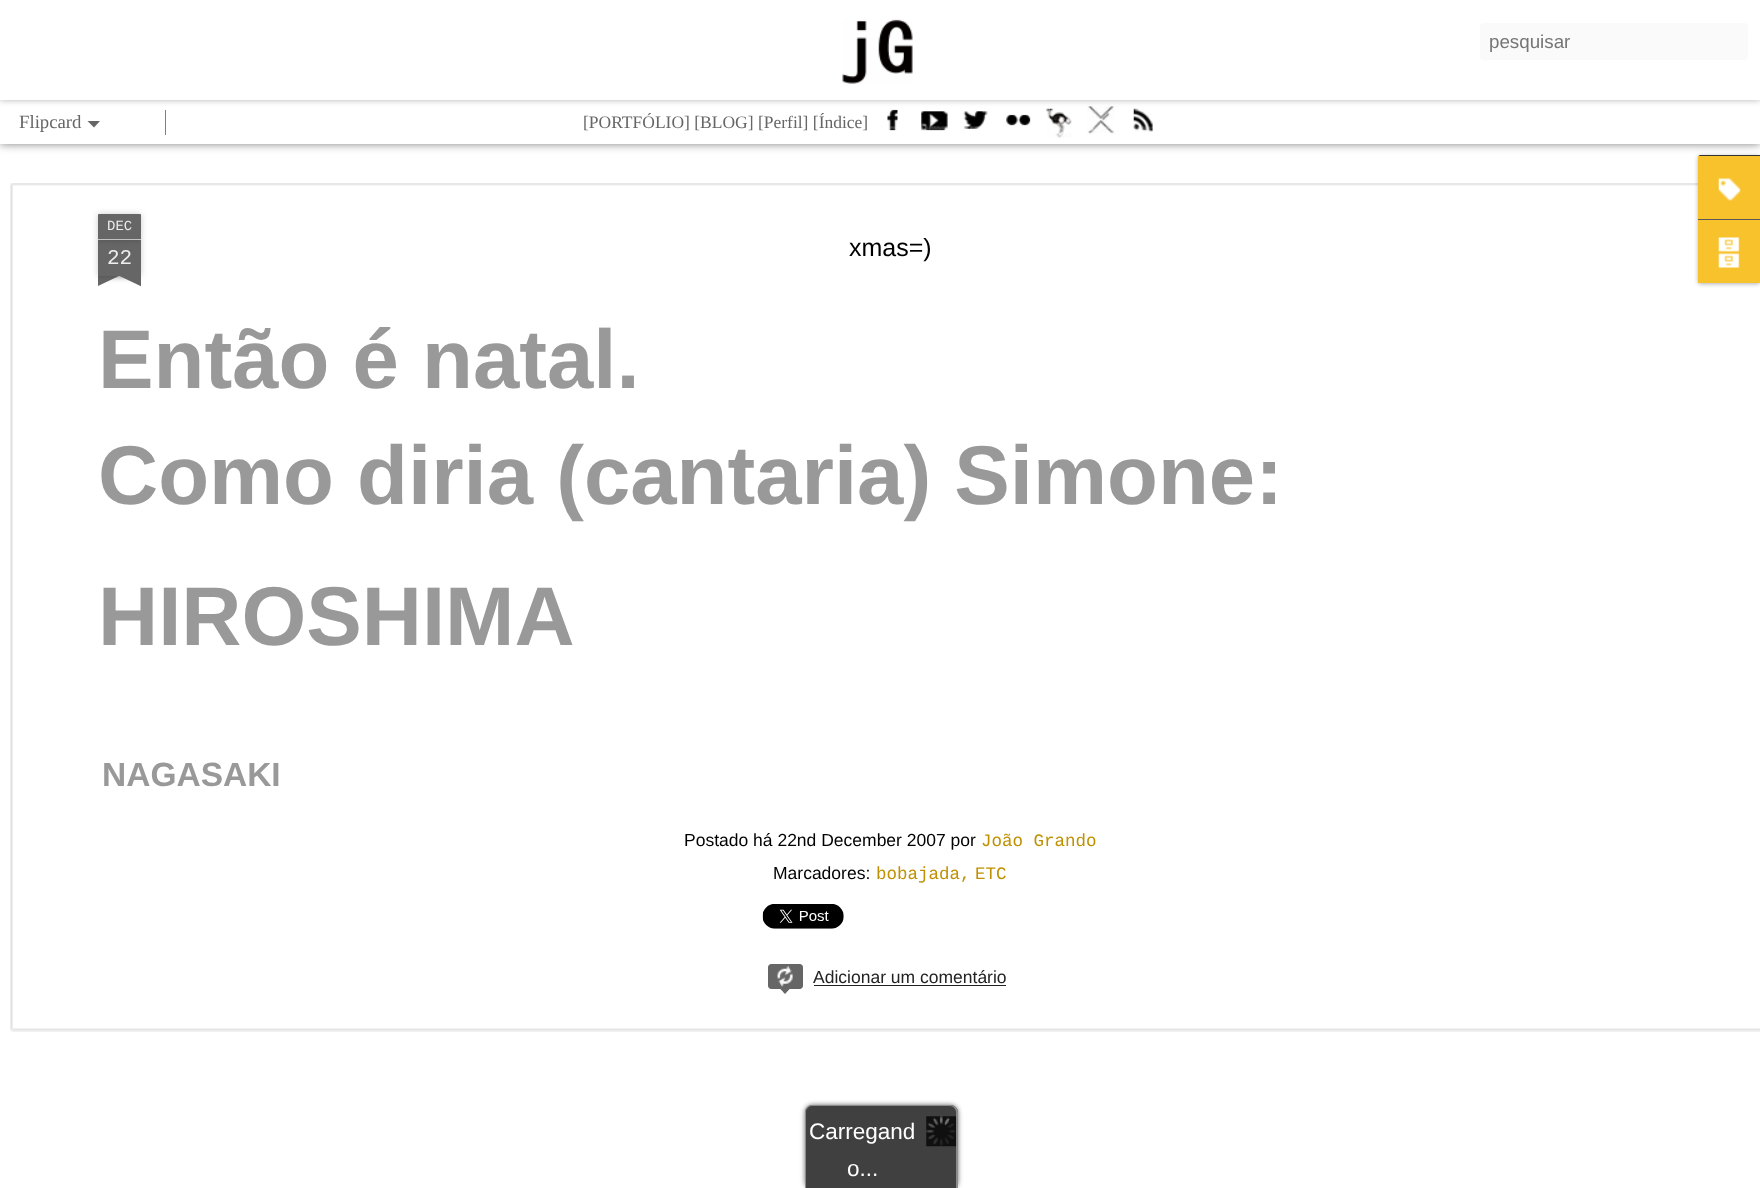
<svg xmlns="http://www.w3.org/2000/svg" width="1760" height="1188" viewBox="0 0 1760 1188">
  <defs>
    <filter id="blur1" x="-50%" y="-200%" width="200%" height="500%"><feGaussianBlur stdDeviation="5"/></filter>
    <filter id="blur2" x="-50%" y="-200%" width="200%" height="500%"><feGaussianBlur stdDeviation="3"/></filter>
    <clipPath id="clip1"><rect x="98" y="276" width="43" height="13"/></clipPath>
    <clipPath id="clip2"><rect x="98" y="276" width="43" height="13"/></clipPath>
    <filter id="blur3" x="-50%" y="-200%" width="200%" height="500%"><feGaussianBlur stdDeviation="2"/></filter>
    <filter id="blur4" x="-50%" y="-200%" width="200%" height="500%"><feGaussianBlur stdDeviation="2.5"/></filter>
  </defs>
  <rect width="100%" height="100%" fill="#ffffff"/>
  <rect x="0" y="100" width="1760" height="44" fill="#000000" fill-opacity="0.5" filter="url(#blur1)"/>
  <rect x="0" y="100" width="1760" height="44" fill="#ffffff"/>
  <image x="887" y="109" width="11" height="22" href="img2.png"/>
  <image x="1046" y="108" width="26" height="30" href="img6.png"/>
  <image x="1087" y="106" width="28" height="28" href="img7.png"/>
  <image x="1133" y="108" width="20" height="24" href="img8.png"/>
  <rect x="0" y="0" width="1760" height="100" fill="#000000" fill-opacity="0.3" filter="url(#blur2)"/>
  <rect x="0" y="0" width="1760" height="100" fill="#ffffff"/>
  <image x="842" y="19" width="71" height="65" href="img1.png"/>
  <rect x="1480" y="23" width="268" height="37" rx="4" fill="#fafafa"/>
  <text x="1489" y="48" font-family="Liberation Sans" font-size="18.75" fill="#757575">pesquisar</text>
  <text x="19" y="128" font-family="Liberation Serif" font-size="18.75" fill="#666666">Flipcard</text>
  <path d="M87.5 121H100L94 127.5Z" fill="#666666"/>
  <rect x="165" y="110" width="1" height="25" fill="#808080"/>
  <text x="583" y="128" font-family="Liberation Serif" font-size="17.5" fill="#666666">[PORTFÓLIO] [BLOG] [Perfil] [Índice]</text>
  <image x="921" y="111" width="27" height="20" href="img3.png"/>
  <image x="963" y="111" width="25" height="18" href="img4.png"/>
  <image x="1006" y="114" width="25" height="12" href="img5.png"/>
  <image x="10" y="183" width="1750" height="849" href="img9.png"/>
  <rect x="98" y="240" width="43" height="36" fill="#000000" fill-opacity="0.2" filter="url(#blur2)"/>
  <rect x="98" y="240" width="43" height="36" fill="#666666"/>
  <rect x="98" y="214" width="43" height="26" rx="1" fill="#000000" fill-opacity="0.2" filter="url(#blur2)"/>
  <path d="M99 214H140C140.5 214 141 214.5 141 215V240H98V215C98 214.5 98.5 214 99 214Z" fill="#666666"/>
  <rect x="98" y="239" width="43" height="1" fill="#c2c2c2"/>
  <text x="107" y="230" font-family="Liberation Mono" font-size="14" fill="#eeeeee">DEC</text>
  <text x="107" y="264" font-family="Liberation Mono" font-size="21" fill="#eeeeee">22</text>
  <g clip-path="url(#clip1)">
    <rect x="86" y="264" width="63" height="12" fill="#000000" fill-opacity="0.2" filter="url(#blur2)"/>
  </g>
  <g clip-path="url(#clip2)">
    <path d="M87 278L143 251L148 262L92 289Z" fill="#666666"/>
  </g>
  <g clip-path="url(#clip1)">
    <rect x="90" y="264" width="63" height="12" fill="#000000" fill-opacity="0.2" filter="url(#blur2)"/>
  </g>
  <g clip-path="url(#clip2)">
    <path d="M96 251L152 278L147 289L90 262Z" fill="#666666"/>
  </g>
  <text x="849" y="256" font-family="Liberation Sans" font-size="25" fill="#000000">xmas=)</text>
  <text x="98" y="388" font-family="Liberation Sans" font-size="83.3" font-weight="bold" fill="#999999">Então é natal.</text>
  <text x="98" y="504" font-family="Liberation Sans" font-size="83.3" font-weight="bold" fill="#999999">Como diria (cantaria) Simone:</text>
  <text x="98" y="645" font-family="Liberation Sans" font-size="83.3" font-weight="bold" fill="#999999">HIROSHIMA</text>
  <text x="102" y="786" font-family="Liberation Sans" font-size="33.5" font-weight="bold" fill="#999999">NAGASAKI</text>
  <text x="684" y="846" font-family="Liberation Sans" font-size="17.5" fill="#000000">Postado há 22nd December 2007 por</text>
  <text x="981" y="846" font-family="Liberation Mono" font-size="17.5" fill="#bf9000">João Grando</text>
  <text x="773" y="879" font-family="Liberation Sans" font-size="17.5" fill="#000000">Marcadores:</text>
  <text x="876" y="879" font-family="Liberation Mono" font-size="17.5" fill="#bf9000">bobajada,</text>
  <text x="975" y="879" font-family="Liberation Mono" font-size="17.5" fill="#bf9000">ETC</text>
  <image x="762" y="904" width="82" height="25" href="img10.png"/>
  <rect x="768" y="964" width="35" height="25" rx="4" fill="#666666"/>
  <image x="777" y="966" width="16" height="21" href="img11.png"/>
  <rect x="768.5" y="964.5" width="34" height="24" rx="3.5" fill="none" stroke="#666666"/>
  <path d="M779 987.5H791L785 994Z" fill="#666666"/>
  <text x="813" y="983" font-family="Liberation Sans" font-size="17.5" fill="#222222">Adicionar um comentário</text>
  <rect x="814" y="985" width="192" height="1" fill="#222222"/>
  <rect x="1698" y="156" width="62" height="128" rx="2.5" fill="#000000" fill-opacity="0.3" filter="url(#blur3)"/>
  <path d="M1700.5 155H1760V219H1698V157.5C1698 156 1699 155 1700.5 155Z" fill="#333333"/>
  <rect x="1698" y="156" width="62" height="63" fill="#f8c22d"/>
  <image x="1718" y="178" width="23" height="23" href="img12.png"/>
  <rect x="1698" y="219" width="62" height="1" fill="#585858"/>
  <rect x="1698" y="220" width="62" height="63" fill="#f8c22d"/>
  <image x="1718" y="237" width="22" height="31" href="img13.png"/>
  <rect x="805" y="1105" width="153" height="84" rx="8" fill="#666666" filter="url(#blur4)"/>
  <path d="M813 1105H950C954.5 1105 958 1108.5 958 1113V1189H805V1113C805 1108.5 808.5 1105 813 1105Z" fill="#404040"/>
  <path d="M812 1105H950C954 1105 958 1108 958 1112V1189H805V1112C805 1108 808 1105 812 1105ZM812 1106H950C953 1106 956 1109 956 1112V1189H806V1112C806 1109 809 1106 812 1106Z" fill="#8c8c8c" fill-rule="evenodd"/>
  <image x="926" y="1116" width="31" height="31" href="img14.png"/>
  <text x="809" y="1139" font-family="Liberation Sans" font-size="22.5" fill="#ffffff">Carregand</text>
  <text x="847" y="1176" font-family="Liberation Sans" font-size="22.5" fill="#ffffff">o...</text>
</svg>
